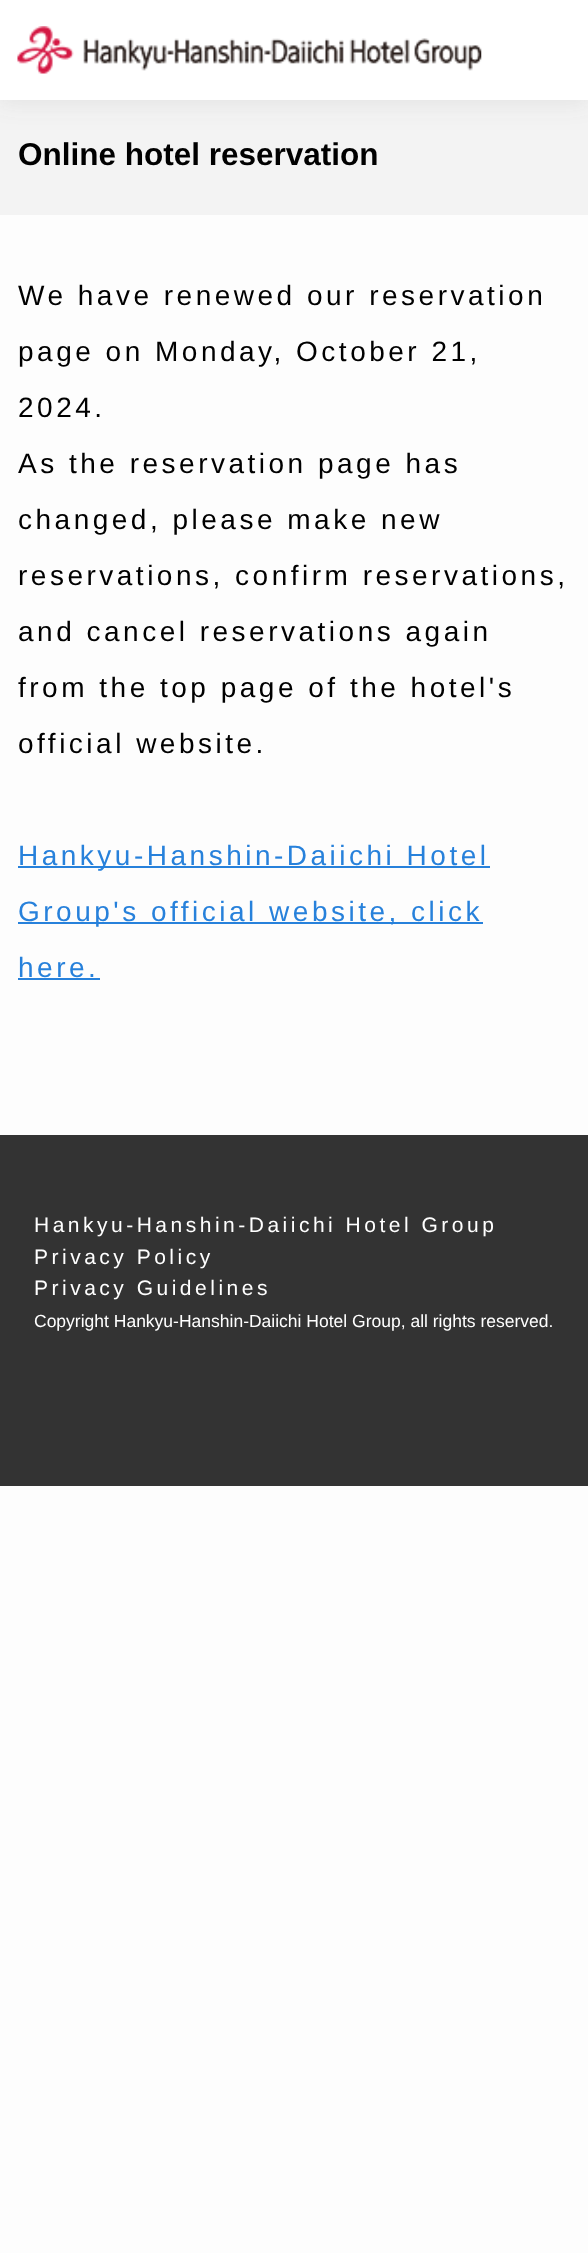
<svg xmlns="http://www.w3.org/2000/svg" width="588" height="2253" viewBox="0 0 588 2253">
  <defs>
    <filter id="blur1" x="-50%" y="-200%" width="200%" height="500%"><feGaussianBlur stdDeviation="10.5"/></filter>
  </defs>
  <rect width="100%" height="100%" fill="#fdfdfd"/>
  <rect x="0" y="100" width="588" height="115" fill="#f3f3f3"/>
  <rect x="0" y="4" width="588" height="99" fill="#767676" fill-opacity="0.14" filter="url(#blur1)"/>
  <rect x="0" y="0" width="588" height="100" fill="#ffffff"/>
  <image x="17" y="26" width="465" height="48" href="img1.png"/>
  <text x="18" y="165" font-family="Liberation Sans" font-size="31.5" font-weight="bold" fill="#000000">Online hotel reservation</text>
  <text x="18" y="305" font-family="Liberation Sans" font-size="28" letter-spacing="3.5" fill="#000000">We have renewed our reservation</text>
  <text x="18" y="361" font-family="Liberation Sans" font-size="28" letter-spacing="3.5" fill="#000000">page on Monday, October 21,</text>
  <text x="18" y="417" font-family="Liberation Sans" font-size="28" letter-spacing="3.5" fill="#000000">2024.</text>
  <text x="18" y="473" font-family="Liberation Sans" font-size="28" letter-spacing="3.5" fill="#000000">As the reservation page has</text>
  <text x="18" y="529" font-family="Liberation Sans" font-size="28" letter-spacing="3.5" fill="#000000">changed, please make new</text>
  <text x="18" y="585" font-family="Liberation Sans" font-size="28" letter-spacing="3.5" fill="#000000">reservations, confirm reservations,</text>
  <text x="18" y="641" font-family="Liberation Sans" font-size="28" letter-spacing="3.5" fill="#000000">and cancel reservations again</text>
  <text x="18" y="697" font-family="Liberation Sans" font-size="28" letter-spacing="3.5" fill="#000000">from the top page of the hotel's</text>
  <text x="18" y="753" font-family="Liberation Sans" font-size="28" letter-spacing="3.5" fill="#000000">official website.</text>
  <rect x="18" y="866" width="472" height="2" fill="#2781db"/>
  <text x="18" y="865" font-family="Liberation Sans" font-size="28" letter-spacing="3.5" fill="#2781db">Hankyu-Hanshin-Daiichi Hotel</text>
  <rect x="18" y="922" width="465" height="2" fill="#2781db"/>
  <text x="18" y="921" font-family="Liberation Sans" font-size="28" letter-spacing="3.5" fill="#2781db">Group's official website, click</text>
  <text x="18" y="977" font-family="Liberation Sans" font-size="28" letter-spacing="3.5" fill="#2781db">here.</text>
  <rect x="18" y="978" width="82" height="2" fill="#2781db"/>
  <rect x="0" y="1135" width="588" height="351" fill="#333333"/>
  <text x="34" y="1232" font-family="Liberation Sans" font-size="21" letter-spacing="3.5" fill="#ffffff">Hankyu-Hanshin-Daiichi Hotel Group</text>
  <text x="34" y="1264" font-family="Liberation Sans" font-size="21" letter-spacing="3.5" fill="#ffffff">Privacy Policy</text>
  <text x="34" y="1295" font-family="Liberation Sans" font-size="21" letter-spacing="3.5" fill="#ffffff">Privacy Guidelines</text>
  <text x="34" y="1327" font-family="Liberation Sans" font-size="17.5" fill="#ffffff">Copyright Hankyu-Hanshin-Daiichi Hotel Group, all rights reserved.</text>
</svg>
